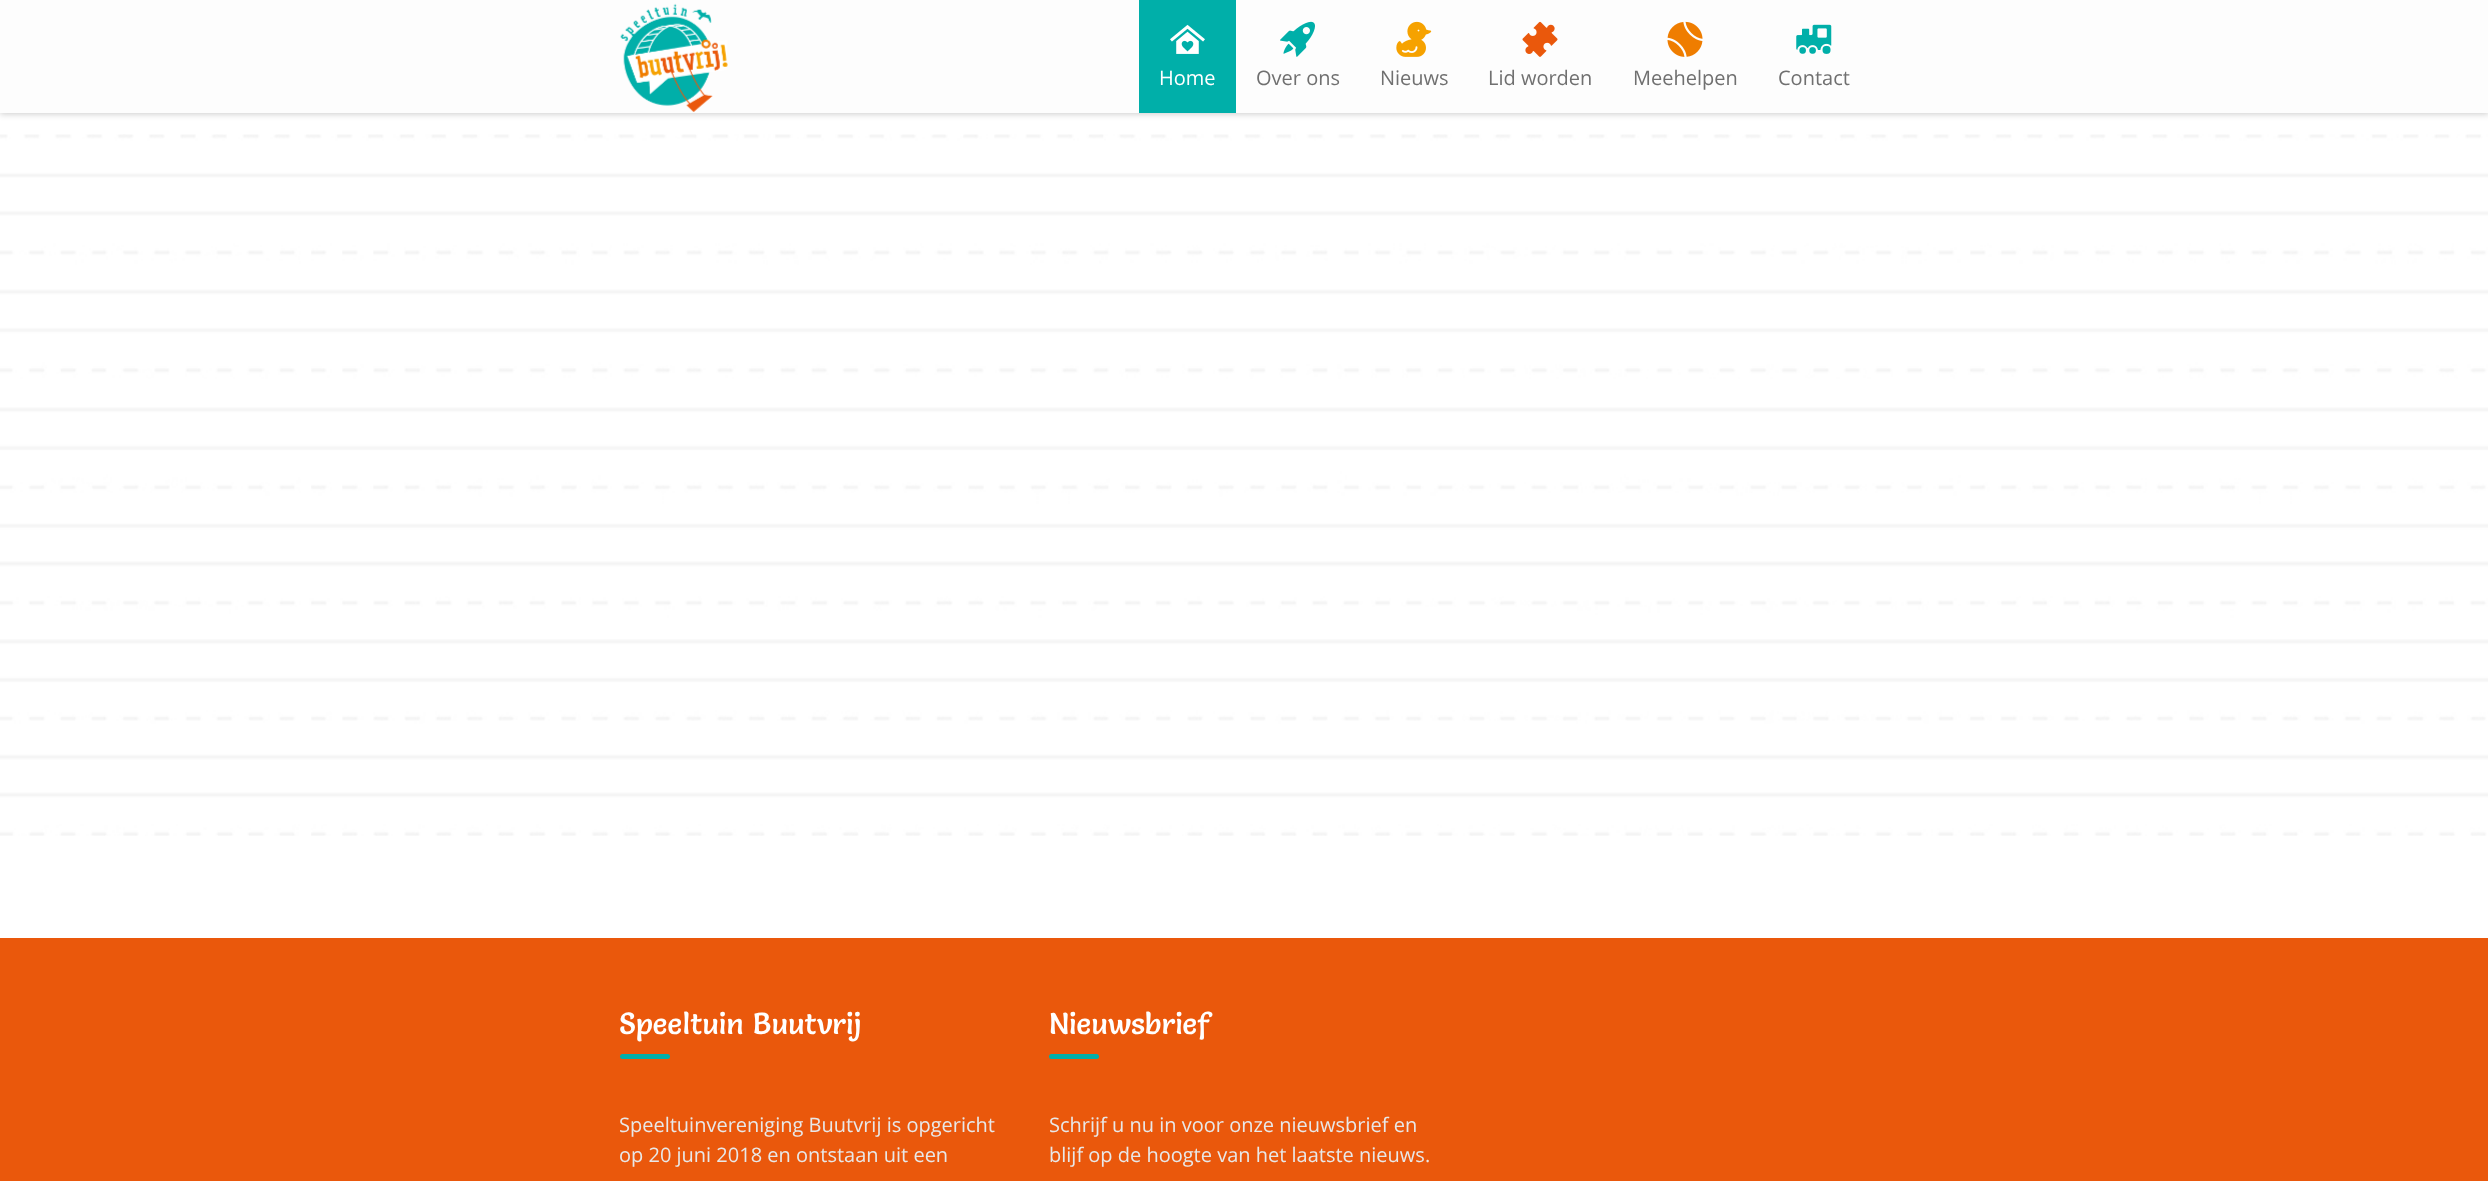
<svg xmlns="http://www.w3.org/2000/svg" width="2488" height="1181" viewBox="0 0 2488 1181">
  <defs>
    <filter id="blur1" x="-50%" y="-200%" width="200%" height="500%"><feGaussianBlur stdDeviation="3"/></filter>
  </defs>
  <rect width="100%" height="100%" fill="#ffffff"/>
  <rect x="0" y="1" width="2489" height="113" fill="#000000" fill-opacity="0.2" filter="url(#blur1)"/>
  <rect x="0" y="0" width="2488" height="113" fill="#fdfdfd"/>
  <image x="620" y="3" width="108" height="109" href="img1.png"/>
  <rect x="1139" y="0" width="97" height="113" fill="#00afa9"/>
  <image x="1170" y="24" width="35" height="30" href="img2.png"/>
  <text x="1159" y="85" font-family="Open Sans" font-size="20" fill="#ffffff">Home</text>
  <image x="1280" y="21" width="35" height="36" href="img3.png"/>
  <text x="1256" y="85" font-family="Open Sans" font-size="20" fill="#707070">Over ons</text>
  <image x="1396" y="21" width="36" height="36" href="img4.png"/>
  <text x="1380" y="85" font-family="Open Sans" font-size="20" fill="#707070">Nieuws</text>
  <image x="1522" y="21" width="36" height="36" href="img5.png"/>
  <text x="1488" y="85" font-family="Open Sans" font-size="20" fill="#707070">Lid worden</text>
  <image x="1667" y="21" width="36" height="36" href="img6.png"/>
  <text x="1633" y="85" font-family="Open Sans" font-size="20" fill="#707070">Meehelpen</text>
  <image x="1796" y="24" width="36" height="30" href="img7.png"/>
  <text x="1778" y="85" font-family="Open Sans" font-size="20" fill="#707070">Contact</text>
  <image x="0" y="134" width="2488" height="702" href="img8.png"/>
  <rect x="0" y="938" width="2488" height="243" fill="#ea580c"/>
  <text x="619" y="1034" font-family="Salsa" font-size="30" fill="#ffffff">Speeltuin Buutvrij</text>
  <rect x="620" y="1054" width="50" height="5" rx="2.5" fill="#00afa9"/>
  <text x="619" y="1132" font-family="Open Sans" font-size="20" fill="#e8e8e8">Speeltuinvereniging Buutvrij is opgericht</text>
  <text x="619" y="1162" font-family="Open Sans" font-size="20" fill="#e8e8e8">op 20 juni 2018 en ontstaan uit een</text>
  <text x="1049" y="1034" font-family="Salsa" font-size="30" fill="#ffffff">Nieuwsbrief</text>
  <rect x="1049" y="1054" width="50" height="5" rx="2.5" fill="#00afa9"/>
  <text x="1049" y="1132" font-family="Open Sans" font-size="20" fill="#e8e8e8">Schrijf u nu in voor onze nieuwsbrief en</text>
  <text x="1049" y="1162" font-family="Open Sans" font-size="20" fill="#e8e8e8">blijf op de hoogte van het laatste nieuws.</text>
</svg>
